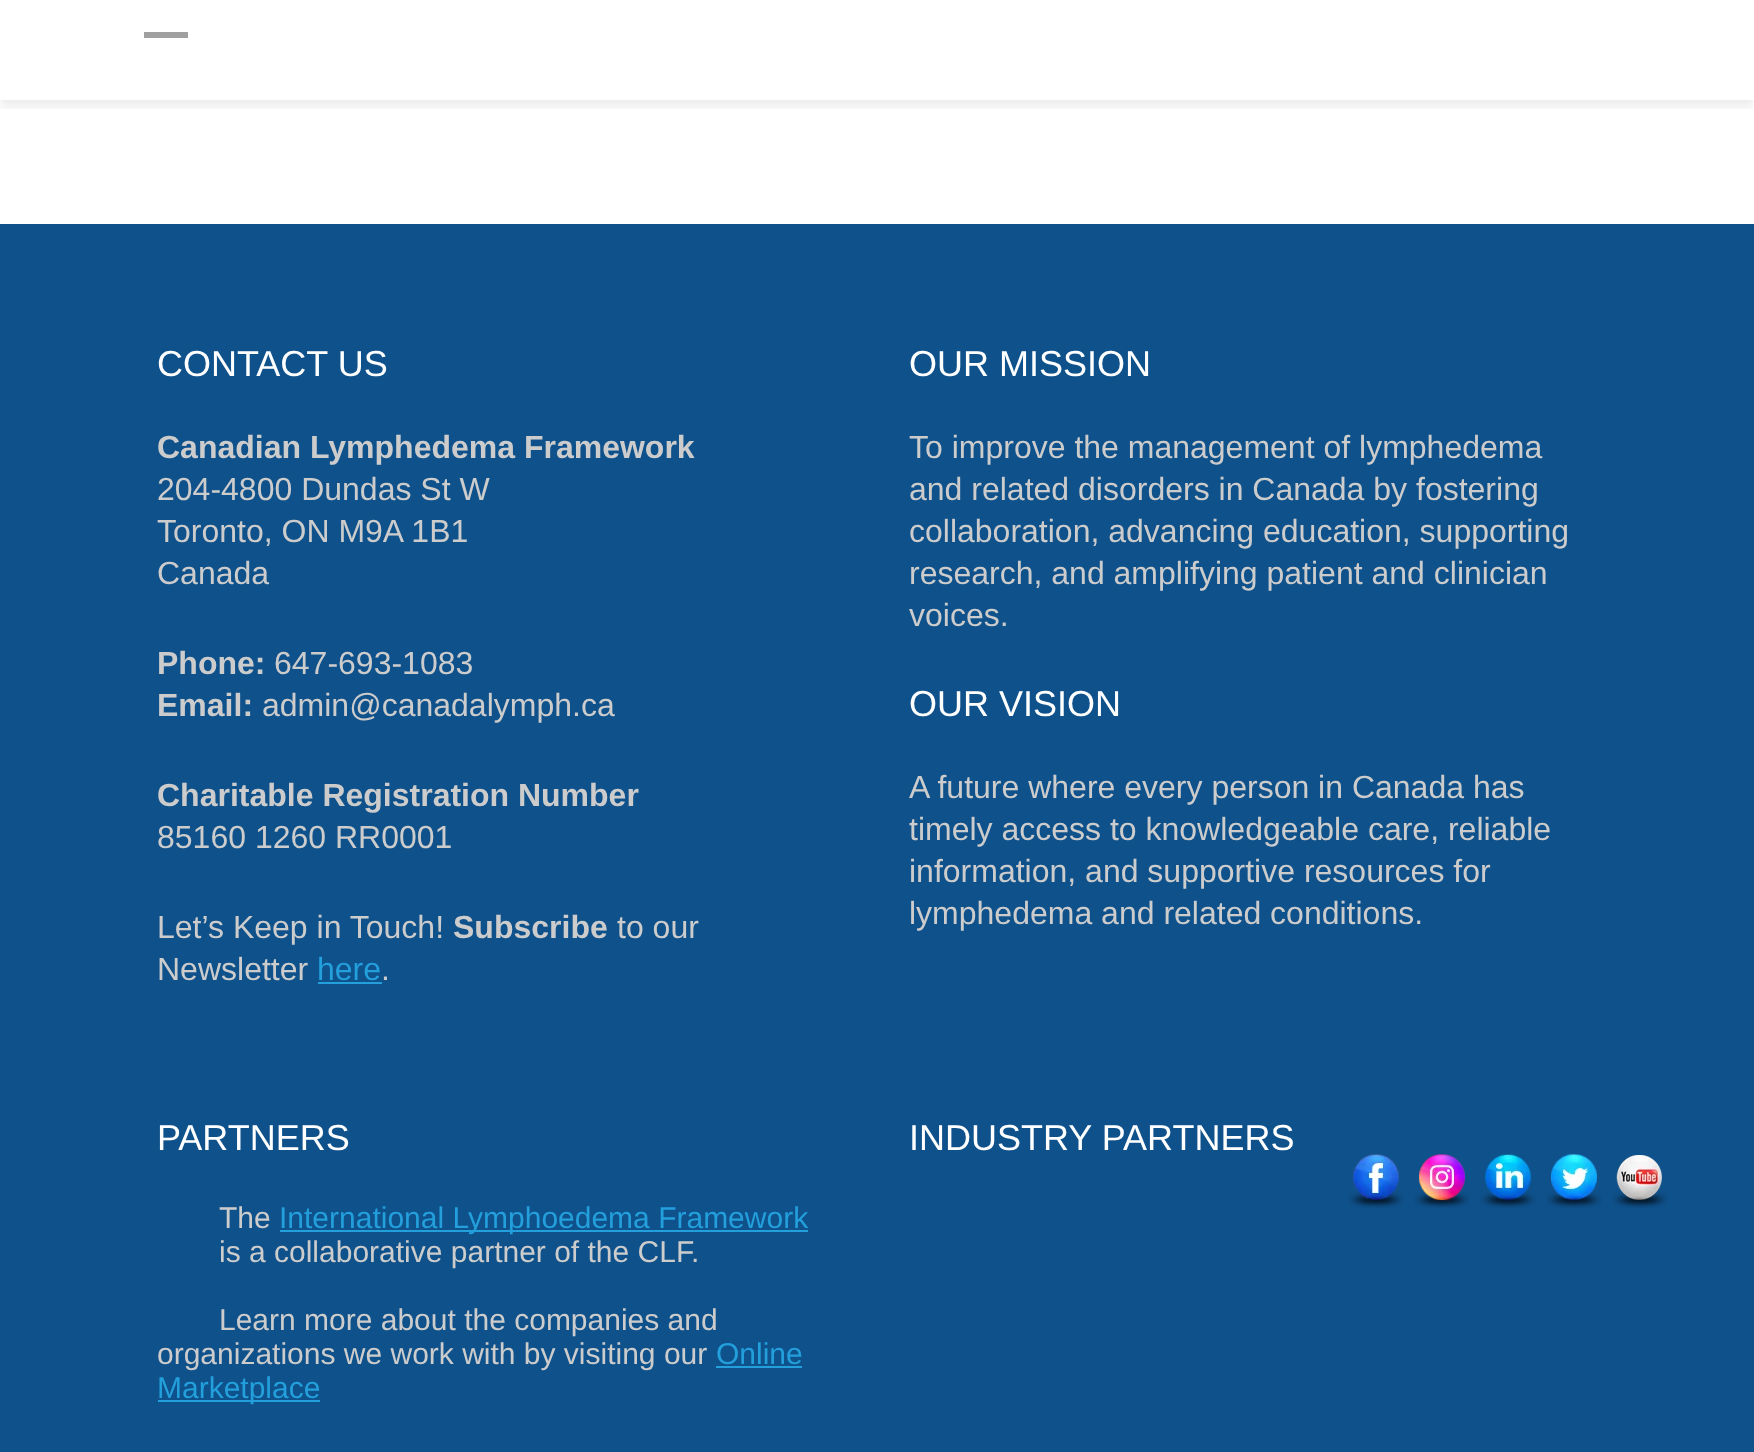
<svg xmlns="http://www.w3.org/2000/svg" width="1754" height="1452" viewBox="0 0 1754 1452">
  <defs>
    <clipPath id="clip1"><rect x="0" y="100" width="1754" height="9"/></clipPath>
    <filter id="blur1" x="-50%" y="-200%" width="200%" height="500%"><feGaussianBlur stdDeviation="4"/></filter>
  </defs>
  <rect width="100%" height="100%" fill="#ffffff"/>
  <g clip-path="url(#clip1)">
    <rect x="0" y="6" width="1754" height="100" fill="#323232" fill-opacity="0.1" filter="url(#blur1)"/>
  </g>
  <rect x="144" y="32" width="44" height="6" fill="#a0a0a0"/>
  <rect x="0" y="224" width="1754" height="1228" fill="#0f518b"/>
  <text x="157" y="376" font-family="Liberation Sans" font-size="36" fill="#ffffff">CONTACT US</text>
  <text x="157" y="458" font-family="Liberation Sans" font-size="32" font-weight="bold" fill="#cccccc">Canadian Lymphedema Framework</text>
  <text x="157" y="500" font-family="Liberation Sans" font-size="32" fill="#cccccc">204-4800 Dundas St W</text>
  <text x="157" y="542" font-family="Liberation Sans" font-size="32" fill="#cccccc">Toronto, ON M9A 1B1</text>
  <text x="157" y="584" font-family="Liberation Sans" font-size="32" fill="#cccccc">Canada</text>
  <text x="157" y="674" font-family="Liberation Sans" font-size="32" font-weight="bold" fill="#cccccc">Phone:</text>
  <text x="274" y="674" font-family="Liberation Sans" font-size="32" fill="#cccccc">647-693-1083</text>
  <text x="157" y="716" font-family="Liberation Sans" font-size="32" font-weight="bold" fill="#cccccc">Email:</text>
  <text x="262" y="716" font-family="Liberation Sans" font-size="32" fill="#cccccc">admin@canadalymph.ca</text>
  <text x="157" y="806" font-family="Liberation Sans" font-size="32" font-weight="bold" fill="#cccccc">Charitable Registration Number</text>
  <text x="157" y="848" font-family="Liberation Sans" font-size="32" fill="#cccccc">85160 1260 RR0001</text>
  <text x="157" y="938" font-family="Liberation Sans" font-size="32" fill="#cccccc">Let’s Keep in Touch!</text>
  <text x="453" y="938" font-family="Liberation Sans" font-size="32" font-weight="bold" fill="#cccccc">Subscribe</text>
  <text x="617" y="938" font-family="Liberation Sans" font-size="32" fill="#cccccc">to our</text>
  <text x="157" y="980" font-family="Liberation Sans" font-size="32" fill="#cccccc">Newsletter</text>
  <text x="317" y="980" font-family="Liberation Sans" font-size="32" fill="#239fdb">here</text>
  <rect x="318" y="982" width="64" height="2" fill="#239fdb"/>
  <text x="381" y="980" font-family="Liberation Sans" font-size="32" fill="#cccccc">.</text>
  <text x="909" y="376" font-family="Liberation Sans" font-size="36" fill="#ffffff">OUR MISSION</text>
  <text x="909" y="458" font-family="Liberation Sans" font-size="32" fill="#cccccc">To improve the management of lymphedema</text>
  <text x="909" y="500" font-family="Liberation Sans" font-size="32" fill="#cccccc">and related disorders in Canada by fostering</text>
  <text x="909" y="542" font-family="Liberation Sans" font-size="32" fill="#cccccc">collaboration, advancing education, supporting</text>
  <text x="909" y="584" font-family="Liberation Sans" font-size="32" fill="#cccccc">research, and amplifying patient and clinician</text>
  <text x="909" y="626" font-family="Liberation Sans" font-size="32" fill="#cccccc">voices.</text>
  <text x="909" y="716" font-family="Liberation Sans" font-size="36" fill="#ffffff">OUR VISION</text>
  <text x="909" y="798" font-family="Liberation Sans" font-size="32" fill="#cccccc">A future where every person in Canada has</text>
  <text x="909" y="840" font-family="Liberation Sans" font-size="32" fill="#cccccc">timely access to knowledgeable care, reliable</text>
  <text x="909" y="882" font-family="Liberation Sans" font-size="32" fill="#cccccc">information, and supportive resources for</text>
  <text x="909" y="924" font-family="Liberation Sans" font-size="32" fill="#cccccc">lymphedema and related conditions.</text>
  <text x="157" y="1150" font-family="Liberation Sans" font-size="36" fill="#ffffff">PARTNERS</text>
  <text x="219" y="1228" font-family="Liberation Sans" font-size="30" fill="#cccccc">The</text>
  <rect x="280" y="1230" width="528" height="2" fill="#239fdb"/>
  <text x="279" y="1228" font-family="Liberation Sans" font-size="30" fill="#239fdb">International Lymphoedema Framework</text>
  <text x="219" y="1262" font-family="Liberation Sans" font-size="30" fill="#cccccc">is a collaborative partner of the CLF.</text>
  <text x="219" y="1330" font-family="Liberation Sans" font-size="30" fill="#cccccc">Learn more about the companies and</text>
  <text x="157" y="1364" font-family="Liberation Sans" font-size="30" fill="#cccccc">organizations we work with by visiting our</text>
  <text x="716" y="1364" font-family="Liberation Sans" font-size="30" fill="#239fdb">Online</text>
  <rect x="716" y="1366" width="86" height="2" fill="#239fdb"/>
  <rect x="158" y="1400" width="162" height="2" fill="#239fdb"/>
  <text x="157" y="1398" font-family="Liberation Sans" font-size="30" fill="#239fdb">Marketplace</text>
  <text x="909" y="1150" font-family="Liberation Sans" font-size="36" fill="#ffffff">INDUSTRY PARTNERS</text>
  <image x="1348" y="1154" width="56" height="54" href="img1.png"/>
  <image x="1414" y="1154" width="56" height="54" href="img2.png"/>
  <image x="1480" y="1154" width="56" height="54" href="img3.png"/>
  <image x="1546" y="1154" width="56" height="54" href="img4.png"/>
  <image x="1612" y="1155" width="56" height="53" href="img5.png"/>
</svg>
